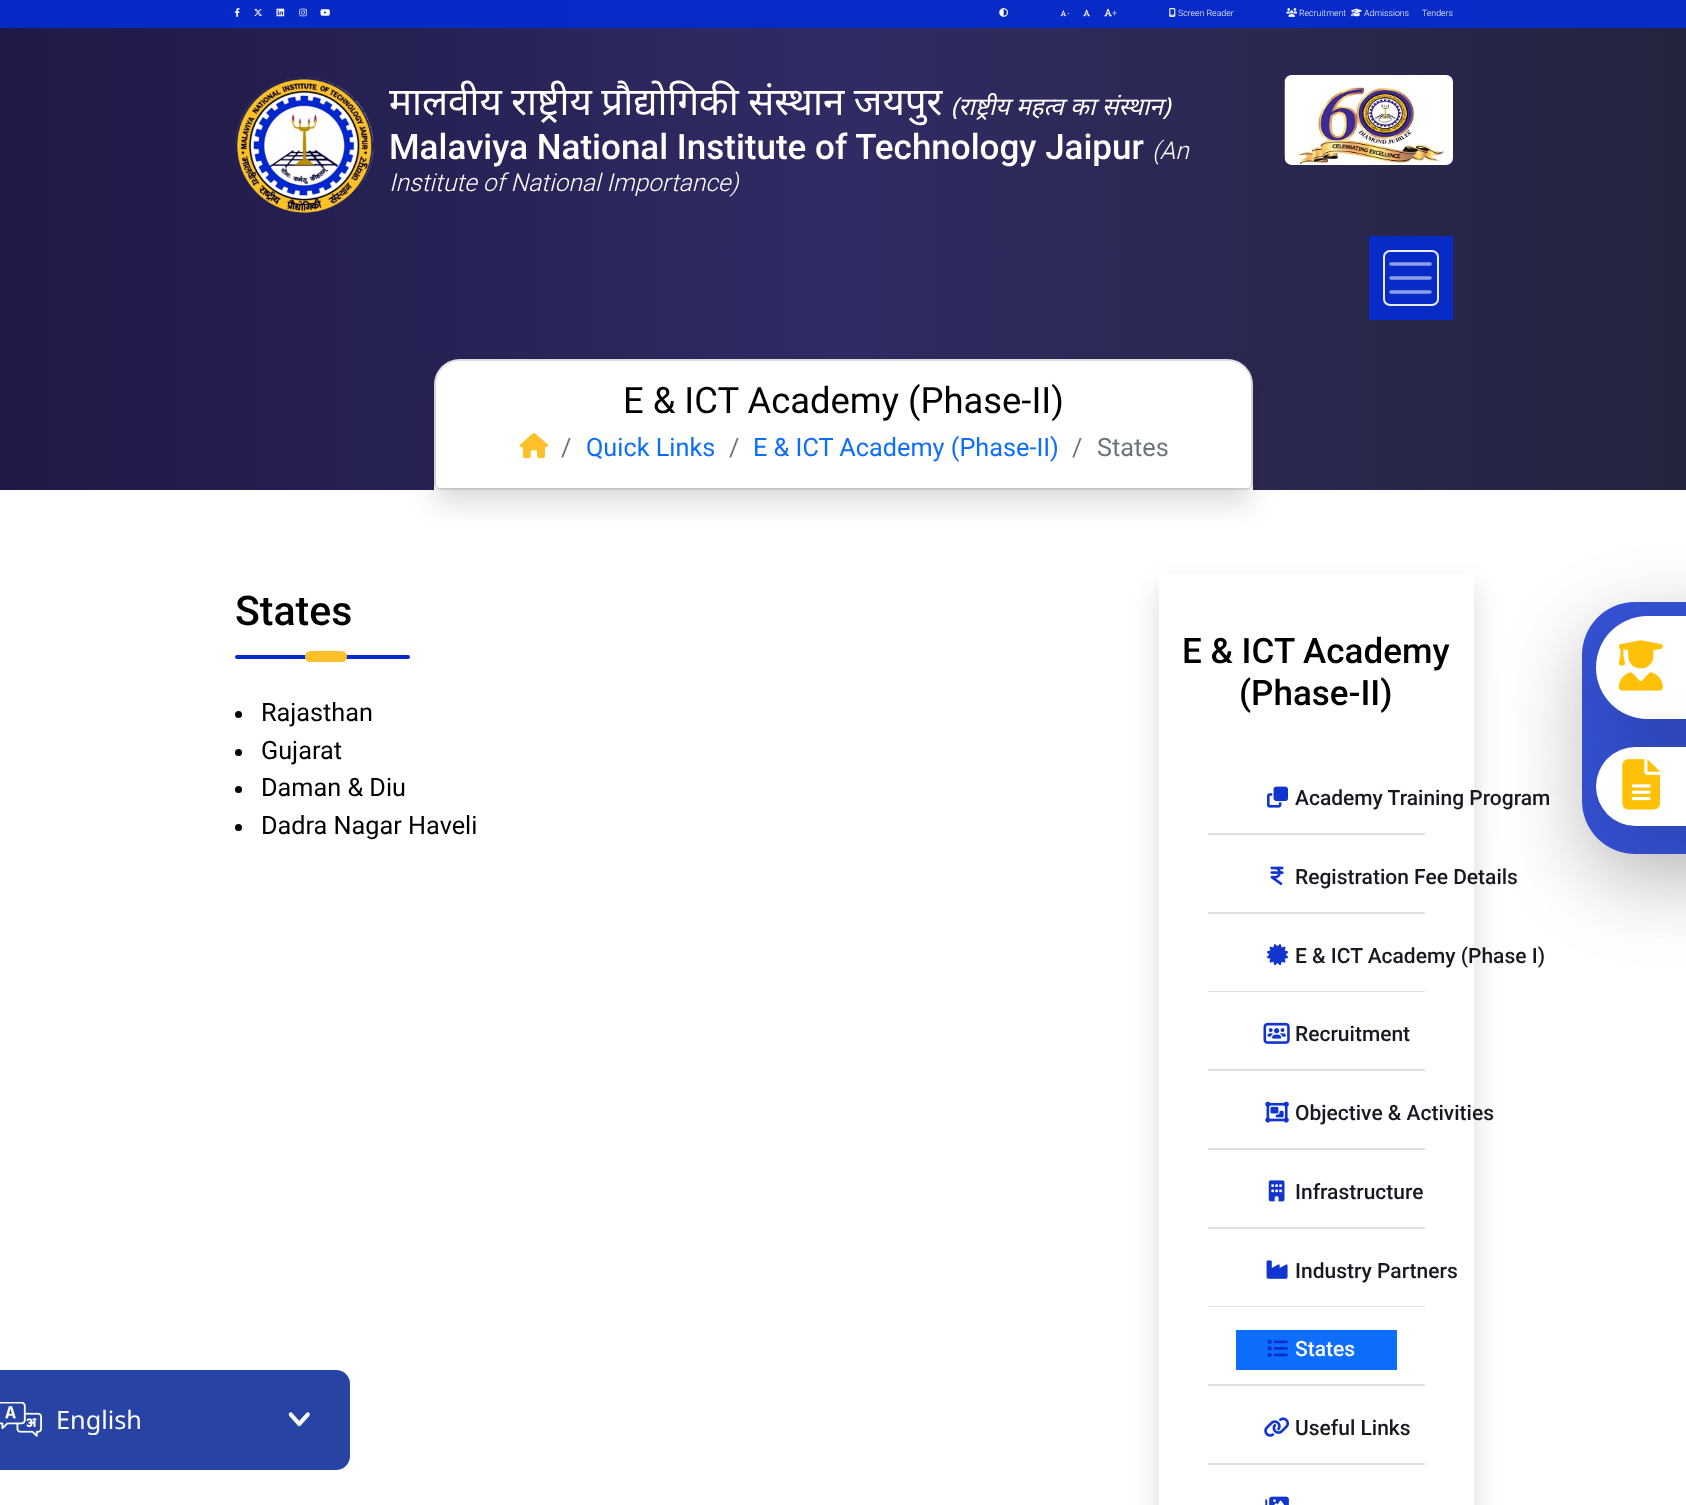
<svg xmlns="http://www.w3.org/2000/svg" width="1686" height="1505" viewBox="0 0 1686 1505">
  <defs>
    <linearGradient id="g1" gradientUnits="userSpaceOnUse" x1="0" y1="245" x2="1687" y2="245"><stop offset="0" stop-color="#0729c5"/><stop offset="0.5" stop-color="#082ac7"/><stop offset="1" stop-color="#082ac5"/></linearGradient>
    <linearGradient id="g2" gradientUnits="userSpaceOnUse" x1="0" y1="245" x2="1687" y2="245"><stop offset="0" stop-color="#1e1946"/><stop offset="0.5" stop-color="#302b63"/><stop offset="1" stop-color="#24243e"/></linearGradient>
    <clipPath id="clip1"><path d="M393 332H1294V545H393ZM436 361H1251V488H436Z" clip-rule="evenodd"/></clipPath>
    <filter id="blur1" x="-50%" y="-200%" width="200%" height="500%"><feGaussianBlur stdDeviation="14"/></filter>
    <clipPath id="clip2"><path d="M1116 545H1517V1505H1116ZM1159 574H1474V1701H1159Z" clip-rule="evenodd"/></clipPath>
    <clipPath id="clip3"><path d="M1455 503H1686V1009H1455ZM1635 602H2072C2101.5 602 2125 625.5 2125 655V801C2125 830.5 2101.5 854 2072 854H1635C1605.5 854 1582 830.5 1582 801V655C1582 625.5 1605.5 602 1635 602Z" clip-rule="evenodd"/></clipPath>
    <filter id="blur2" x="-50%" y="-200%" width="200%" height="500%"><feGaussianBlur stdDeviation="42"/></filter>
  </defs>
  <rect width="100%" height="100%" fill="#ffffff"/>
  <rect x="0" y="0" width="1686" height="28" fill="url(#g1)"/>
  <image x="234" y="8" width="6" height="9" href="img1.png"/>
  <image x="254" y="8" width="8" height="8" href="img2.png"/>
  <image x="276" y="8" width="9" height="9" href="img3.png"/>
  <image x="299" y="8" width="8" height="9" href="img4.png"/>
  <image x="320" y="9" width="10" height="7" href="img5.png"/>
  <image x="999" y="8" width="9" height="9" href="img6.png"/>
  <image x="1060" y="10" width="7" height="7" href="img7.png"/>
  <text x="1067" y="16" font-family="Roboto" font-size="8.75" font-weight="300" fill="#ffffff">-</text>
  <image x="1083" y="9" width="7" height="8" href="img8.png"/>
  <image x="1104" y="8" width="8" height="9" href="img9.png"/>
  <text x="1112" y="16" font-family="Roboto" font-size="8.75" font-weight="300" fill="#ffffff">+</text>
  <image x="1169" y="8" width="7" height="9" href="img10.png"/>
  <text x="1178" y="16" font-family="Roboto" font-size="8.75" font-weight="300" fill="#ffffff">Screen Reader</text>
  <image x="1286" y="8" width="12" height="9" href="img11.png"/>
  <text x="1299" y="16" font-family="Roboto" font-size="8.75" font-weight="300" fill="#ffffff">Recruitment</text>
  <image x="1351" y="8" width="11" height="9" href="img12.png"/>
  <text x="1364" y="16" font-family="Roboto" font-size="8.75" font-weight="300" fill="#ffffff">Admissions</text>
  <text x="1422" y="16" font-family="Roboto" font-size="8.75" font-weight="300" fill="#ffffff">Tenders</text>
  <rect x="0" y="28" width="1686" height="462" fill="url(#g2)"/>
  <image x="235" y="77" width="139" height="136" href="img13.png"/>
  <text x="389" y="115" word-spacing="-0.5" font-family="Noto Sans" font-size="38.5" fill="#ffffff">मालवीय राष्ट्रीय प्रौद्योगिकी संस्थान जयपुर</text>
  <text x="951" y="115" font-family="Noto Sans" font-size="24.5" font-style="italic" fill="#ffffff">(राष्ट्रीय महत्व का संस्थान)</text>
  <text x="389" y="159" font-family="Roboto" font-size="35" font-weight="500" fill="#ffffff">Malaviya National Institute of Technology Jaipur</text>
  <text x="1152" y="159" font-family="Roboto" font-size="24.5" font-weight="300" font-style="italic" fill="#ffffff">(An</text>
  <text x="389" y="191" font-family="Roboto" font-size="24.5" font-weight="300" font-style="italic" fill="#ffffff">Institute of National Importance)</text>
  <rect x="1285" y="75" width="168" height="90" rx="7" fill="#ffffff"/>
  <image x="1284" y="75" width="169" height="90" href="img14.png"/>
  <rect x="1369" y="236" width="84" height="84" fill="#062acc" fill-opacity="0.95"/>
  <rect x="1384" y="251" width="54" height="54" rx="6" fill="none" stroke="#eaeaf0" stroke-width="2"/>
  <path d="M1391 264H1430M1391 278H1430M1391 292H1430" fill="none" stroke="#909fe5" stroke-width="3.5" stroke-linecap="round"/>
  <path d="M460 359H1227C1241.5 359 1253 370.5 1253 385V490H434V385C434 370.5 445.5 359 460 359Z" fill="#ffffff"/>
  <path d="M460 360H1227C1241 360 1252 371 1252 385V483C1252 486.5 1249.5 489 1246 489H441C437.5 489 435 486.5 435 483V385C435 371 446 360 460 360Z" fill="none" stroke="#000000" stroke-opacity="0.12" stroke-width="2"/>
  <g clip-path="url(#clip1)">
    <rect x="436" y="375" width="815" height="127" fill="#000000" fill-opacity="0.15" filter="url(#blur1)"/>
  </g>
  <text x="623" y="413" font-family="Roboto" font-size="36.4" fill="#000000">E &amp; ICT Academy (Phase-II)</text>
  <image x="519" y="433" width="30" height="26" href="img15.png"/>
  <text x="561" y="456" font-family="Roboto" font-size="25.25" fill="#6c757d">/</text>
  <text x="586" y="456" font-family="Roboto" font-size="25.25" fill="#0d6efd">Quick Links</text>
  <text x="729" y="456" font-family="Roboto" font-size="25.25" fill="#6c757d">/</text>
  <text x="753" y="456" font-family="Roboto" font-size="25.25" fill="#0d6efd">E &amp; ICT Academy (Phase-II)</text>
  <text x="1072" y="456" font-family="Roboto" font-size="25.25" fill="#6c757d">/</text>
  <text x="1097" y="456" font-family="Roboto" font-size="25.25" fill="#6c757d">States</text>
  <rect x="-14" y="1370" width="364" height="100" rx="14" fill="#2743a3"/>
  <image x="0" y="1402" width="42" height="35" href="img16.png"/>
  <text x="56" y="1429" font-family="'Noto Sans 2'" font-size="25.25" fill="#ffffff">English</text>
  <image x="288" y="1412" width="22" height="15" href="img17.png"/>
  <text x="235" y="625" font-family="Roboto" font-size="41" font-weight="500" fill="#000000">States</text>
  <rect x="235" y="655" width="175" height="4" rx="2" fill="#062acc"/>
  <rect x="305" y="651" width="42" height="11" rx="5.5" fill="#fbc02a"/>
  <circle cx="238.5" cy="714.5" r="3.5" fill="#000000"/>
  <text x="261" y="721" font-family="Roboto" font-size="25.25" fill="#000000">Rajasthan</text>
  <circle cx="238.5" cy="752.5" r="3.5" fill="#000000"/>
  <text x="261" y="759" font-family="Roboto" font-size="25.25" fill="#000000">Gujarat</text>
  <circle cx="238.5" cy="789.5" r="3.5" fill="#000000"/>
  <text x="261" y="796" font-family="Roboto" font-size="25.25" fill="#000000">Daman &amp; Diu</text>
  <circle cx="238.5" cy="827.5" r="3.5" fill="#000000"/>
  <text x="261" y="834" font-family="Roboto" font-size="25.25" fill="#000000">Dadra Nagar Haveli</text>
  <g clip-path="url(#clip2)">
    <rect x="1159" y="588" width="315" height="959" fill="#000000" fill-opacity="0.15" filter="url(#blur1)"/>
  </g>
  <text x="1182" y="663" font-family="Roboto" font-size="35" font-weight="500" fill="#000000">E &amp; ICT Academy</text>
  <text x="1239" y="705" font-family="Roboto" font-size="35" font-weight="500" fill="#000000">(Phase-II)</text>
  <rect x="1208" y="833" width="217" height="2" fill="#dfdfdf"/>
  <image x="1267" y="786" width="21" height="22" href="img18.png"/>
  <text x="1295" y="805" font-family="Roboto" font-size="21" font-weight="500" fill="#181825">Academy Training Program</text>
  <rect x="1208" y="912" width="217" height="2" fill="#dfdfdf"/>
  <image x="1270" y="866" width="14" height="19" href="img19.png"/>
  <text x="1295" y="884" font-family="Roboto" font-size="21" font-weight="500" fill="#181825">Registration Fee Details</text>
  <rect x="1208" y="991" width="217" height="1" fill="#dfdfdf"/>
  <image x="1267" y="944" width="21" height="22" href="img20.png"/>
  <text x="1295" y="963" font-family="Roboto" font-size="21" font-weight="500" fill="#181825">E &amp; ICT Academy (Phase I)</text>
  <rect x="1208" y="1069" width="217" height="2" fill="#dfdfdf"/>
  <image x="1263" y="1022" width="27" height="22" href="img21.png"/>
  <text x="1295" y="1041" font-family="Roboto" font-size="21" font-weight="500" fill="#181825">Recruitment</text>
  <rect x="1208" y="1148" width="217" height="2" fill="#dfdfdf"/>
  <image x="1265" y="1101" width="24" height="22" href="img22.png"/>
  <text x="1295" y="1120" font-family="Roboto" font-size="21" font-weight="500" fill="#181825">Objective &amp; Activities</text>
  <rect x="1208" y="1227" width="217" height="2" fill="#dfdfdf"/>
  <image x="1268" y="1180" width="17" height="22" href="img23.png"/>
  <text x="1295" y="1199" font-family="Roboto" font-size="21" font-weight="500" fill="#181825">Infrastructure</text>
  <rect x="1208" y="1306" width="217" height="1" fill="#dfdfdf"/>
  <image x="1266" y="1260" width="22" height="19" href="img24.png"/>
  <text x="1295" y="1278" font-family="Roboto" font-size="21" font-weight="500" fill="#181825">Industry Partners</text>
  <rect x="1208" y="1384" width="217" height="2" fill="#dfdfdf"/>
  <rect x="1236" y="1330" width="161" height="40" fill="#0d6efd"/>
  <image x="1267" y="1339" width="21" height="18" href="img25.png"/>
  <text x="1295" y="1356" font-family="Roboto" font-size="21" font-weight="500" fill="#ffffff">States</text>
  <rect x="1208" y="1463" width="217" height="2" fill="#dfdfdf"/>
  <image x="1264" y="1417" width="25" height="20" href="img26.png"/>
  <text x="1295" y="1435" font-family="Roboto" font-size="21" font-weight="500" fill="#181825">Useful Links</text>
  <image x="1265" y="1496" width="24" height="9" href="img27.png"/>
  <g clip-path="url(#clip3)">
    <rect x="1582" y="630" width="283" height="252" rx="53" fill="#000000" fill-opacity="0.18" filter="url(#blur2)"/>
  </g>
  <rect x="1582" y="602" width="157" height="252" rx="53" fill="#1134cf" fill-opacity="0.85"/>
  <rect x="1596" y="644" width="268" height="103" rx="51.5" fill="#000000" fill-opacity="0.18" filter="url(#blur2)"/>
  <rect x="1596" y="616" width="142" height="103" rx="51.5" fill="#ffffff"/>
  <rect x="1596" y="775" width="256" height="79" rx="39.5" fill="#000000" fill-opacity="0.18" filter="url(#blur2)"/>
  <image x="1618" y="640" width="45" height="51" href="img28.png"/>
  <rect x="1596" y="747" width="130" height="79" rx="39.5" fill="#ffffff"/>
  <image x="1622" y="759" width="39" height="51" href="img29.png"/>
</svg>
